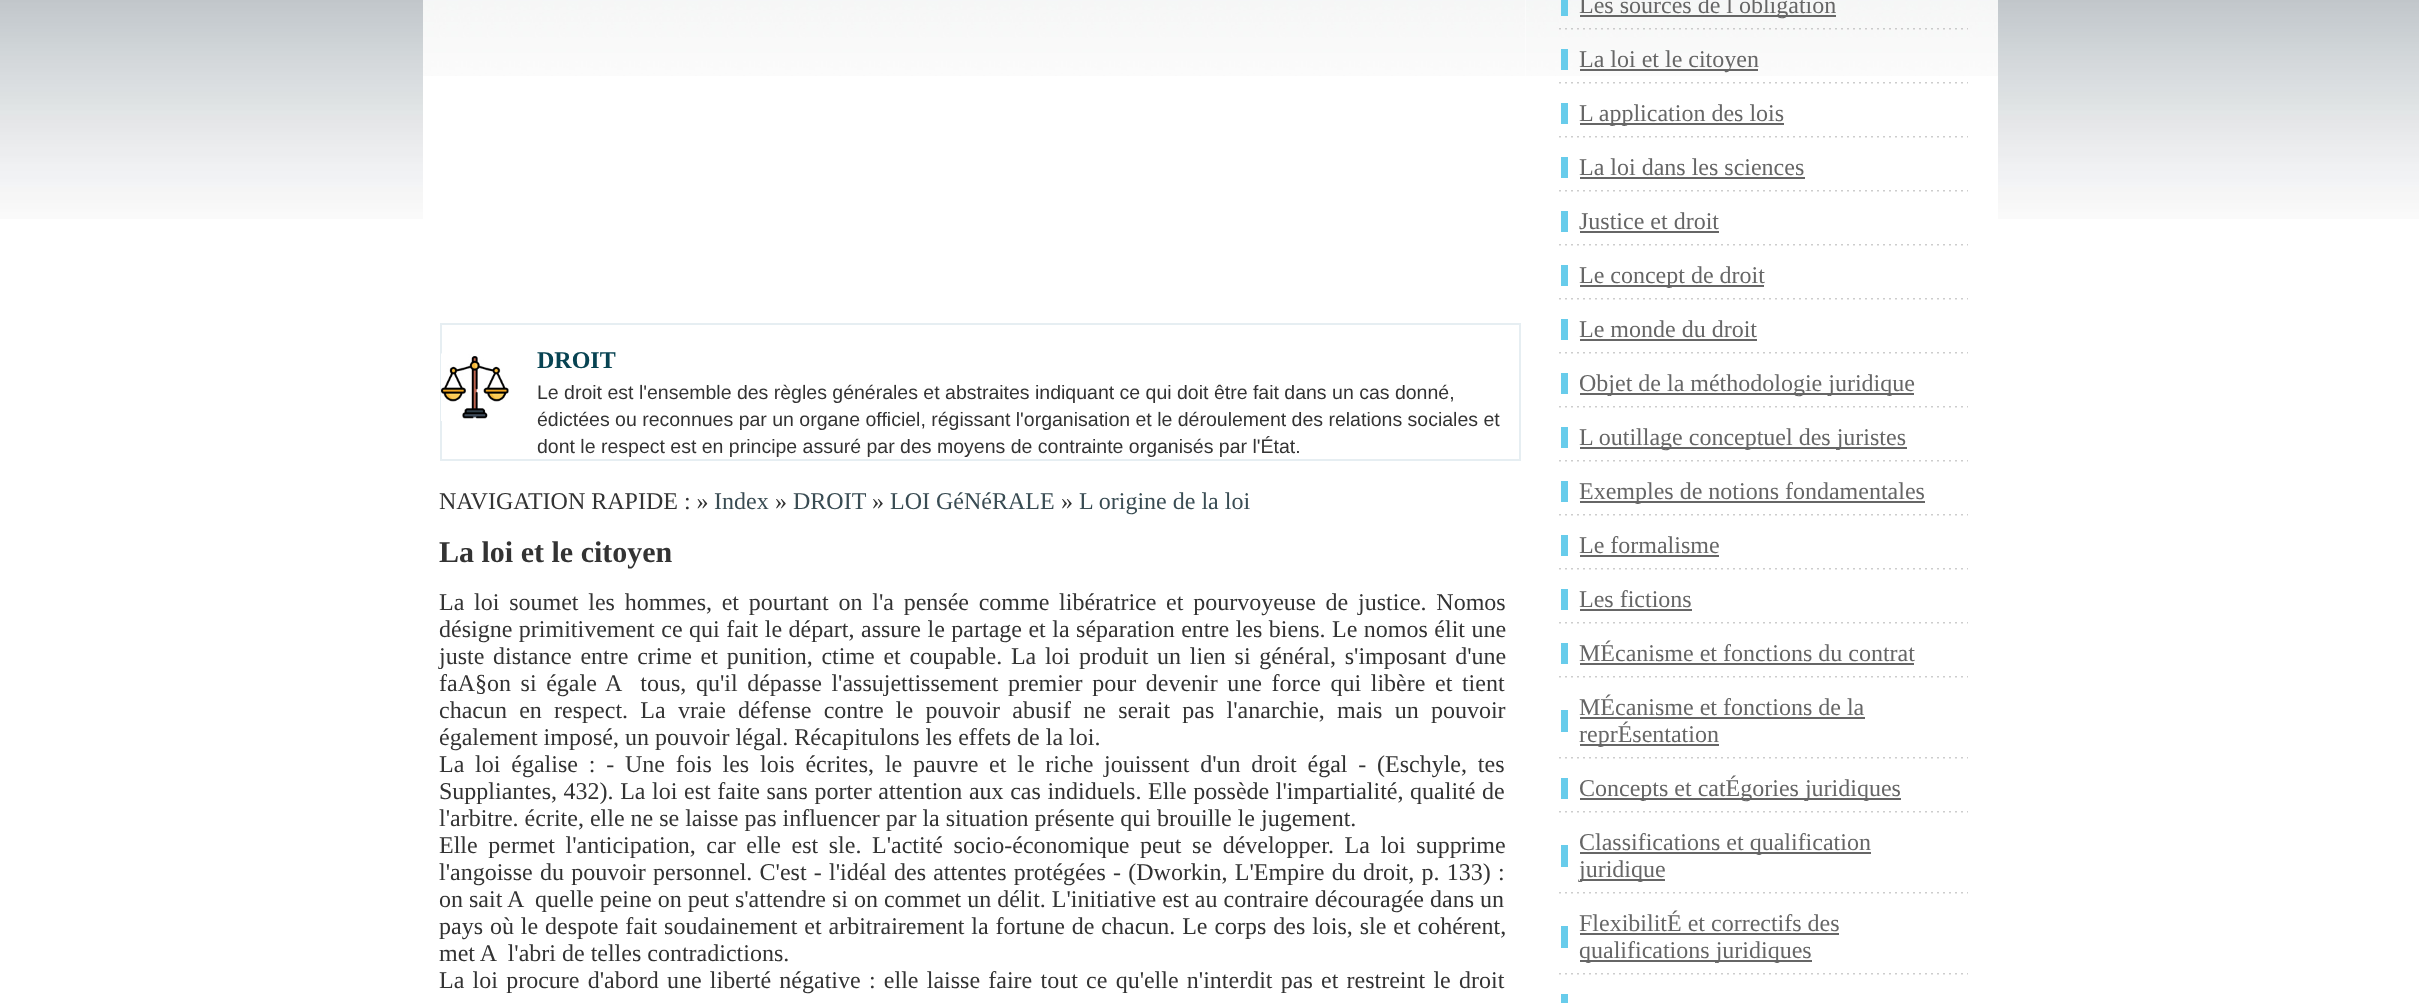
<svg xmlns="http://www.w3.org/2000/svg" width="2419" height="1003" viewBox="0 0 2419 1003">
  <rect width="100%" height="100%" fill="#ffffff"/>
  <image x="0" y="0" width="2419" height="219" href="img1.png"/>
  <rect x="423" y="0" width="1103" height="219" fill="#ffffff"/>
  <image x="423" y="0" width="1103" height="76" href="img2.png"/>
  <rect x="441" y="324" width="1079" height="136" fill="none" stroke="#e6eef2" stroke-width="2"/>
  <image x="441" y="353" width="68" height="68" href="img3.png"/>
  <text x="537" y="368" font-family="Liberation Serif" font-size="24" font-weight="bold" fill="#074352">DROIT</text>
  <text x="537" y="399" font-family="Liberation Sans" font-size="19.5" fill="#333333">Le droit est l'ensemble des règles générales et abstraites indiquant ce qui doit être fait dans un cas donné,</text>
  <text x="537" y="426" font-family="Liberation Sans" font-size="19.5" fill="#333333">édictées ou reconnues par un organe officiel, régissant l'organisation et le déroulement des relations sociales et</text>
  <text x="537" y="453" font-family="Liberation Sans" font-size="19.5" fill="#333333">dont le respect est en principe assuré par des moyens de contrainte organisés par l'État.</text>
  <text x="439" y="509" font-family="Liberation Serif" font-size="24" fill="#333333">NAVIGATION RAPIDE : »</text>
  <text x="714" y="509" font-family="Liberation Serif" font-size="24" fill="#394c53">Index</text>
  <text x="775" y="509" font-family="Liberation Serif" font-size="24" fill="#333333">»</text>
  <text x="793" y="509" font-family="Liberation Serif" font-size="24" fill="#394c53">DROIT</text>
  <text x="872" y="509" font-family="Liberation Serif" font-size="24" fill="#333333">»</text>
  <text x="890" y="509" font-family="Liberation Serif" font-size="24" fill="#394c53">LOI GéNéRALE</text>
  <text x="1061" y="509" font-family="Liberation Serif" font-size="24" fill="#333333">»</text>
  <text x="1079" y="509" font-family="Liberation Serif" font-size="24" fill="#394c53">L origine de la loi</text>
  <text x="439" y="562" font-family="Liberation Serif" font-size="30" font-weight="bold" fill="#333333">La loi et le citoyen</text>
  <text x="439" y="610" word-spacing="3.75" font-family="Liberation Serif" font-size="24" fill="#333333">La loi soumet les hommes, et pourtant on l'a pensée comme libératrice et pourvoyeuse de justice. Nomos</text>
  <text x="439" y="637" word-spacing="0.5" font-family="Liberation Serif" font-size="24" fill="#333333">désigne primitivement ce qui fait le départ, assure le partage et la séparation entre les biens. Le nomos élit une</text>
  <text x="439" y="664" word-spacing="2.75" font-family="Liberation Serif" font-size="24" fill="#333333">juste distance entre crime et punition, ctime et coupable. La loi produit un lien si général, s'imposant d'une</text>
  <text x="439" y="691" word-spacing="3.6" font-family="Liberation Serif" font-size="24" fill="#333333" xml:space="preserve">faA§on si égale A  tous, qu'il dépasse l'assujettissement premier pour devenir une force qui libère et tient</text>
  <text x="439" y="718" word-spacing="6.25" font-family="Liberation Serif" font-size="24" fill="#333333">chacun en respect. La vraie défense contre le pouvoir abusif ne serait pas l'anarchie, mais un pouvoir</text>
  <text x="439" y="745" font-family="Liberation Serif" font-size="24" fill="#333333">également imposé, un pouvoir légal. Récapitulons les effets de la loi.</text>
  <text x="439" y="772" word-spacing="4.8" font-family="Liberation Serif" font-size="24" fill="#333333">La loi égalise : - Une fois les lois écrites, le pauvre et le riche jouissent d'un droit égal - (Eschyle, tes</text>
  <text x="439" y="799" word-spacing="0.6" font-family="Liberation Serif" font-size="24" fill="#333333">Suppliantes, 432). La loi est faite sans porter attention aux cas indiduels. Elle possède l'impartialité, qualité de</text>
  <text x="439" y="826" font-family="Liberation Serif" font-size="24" fill="#333333">l'arbitre. écrite, elle ne se laisse pas influencer par la situation présente qui brouille le jugement.</text>
  <text x="439" y="853" word-spacing="4.6" font-family="Liberation Serif" font-size="24" fill="#333333">Elle permet l'anticipation, car elle est sle. L'actité socio-économique peut se développer. La loi supprime</text>
  <text x="439" y="880" word-spacing="1.25" font-family="Liberation Serif" font-size="24" fill="#333333">l'angoisse du pouvoir personnel. C'est - l'idéal des attentes protégées - (Dworkin, L'Empire du droit, p. 133) :</text>
  <text x="439" y="907" font-family="Liberation Serif" font-size="24" fill="#333333" xml:space="preserve">on sait A  quelle peine on peut s'attendre si on commet un délit. L'initiative est au contraire découragée dans un</text>
  <text x="439" y="934" word-spacing="0.9" font-family="Liberation Serif" font-size="24" fill="#333333">pays où le despote fait soudainement et arbitrairement la fortune de chacun. Le corps des lois, sle et cohérent,</text>
  <text x="439" y="961" font-family="Liberation Serif" font-size="24" fill="#333333" xml:space="preserve">met A  l'abri de telles contradictions.</text>
  <text x="439" y="988" word-spacing="2.25" font-family="Liberation Serif" font-size="24" fill="#333333">La loi procure d'abord une liberté négative : elle laisse faire tout ce qu'elle n'interdit pas et restreint le droit</text>
  <rect x="1526" y="76" width="472" height="143" fill="#ffffff"/>
  <image x="1526" y="0" width="472" height="76" href="img4.png"/>
  <image x="1559" y="28" width="409" height="2" href="img5.png"/>
  <rect x="1561" y="0" width="7" height="16" fill="#68cceb"/>
  <rect x="1580" y="15" width="256" height="2" fill="#666666"/>
  <text x="1579" y="13" font-family="Liberation Serif" font-size="24" fill="#666666">Les sources de l obligation</text>
  <image x="1559" y="82" width="409" height="2" href="img6.png"/>
  <rect x="1561" y="49" width="7" height="21" fill="#68cceb"/>
  <rect x="1580" y="69" width="178" height="2" fill="#666666"/>
  <text x="1579" y="67" font-family="Liberation Serif" font-size="24" fill="#666666">La loi et le citoyen</text>
  <image x="1559" y="136" width="409" height="2" href="img6.png"/>
  <rect x="1561" y="103" width="7" height="21" fill="#68cceb"/>
  <rect x="1580" y="123" width="204" height="2" fill="#666666"/>
  <text x="1579" y="121" font-family="Liberation Serif" font-size="24" fill="#666666">L application des lois</text>
  <image x="1559" y="190" width="409" height="2" href="img6.png"/>
  <rect x="1561" y="157" width="7" height="21" fill="#68cceb"/>
  <text x="1579" y="175" font-family="Liberation Serif" font-size="24" fill="#666666">La loi dans les sciences</text>
  <rect x="1580" y="177" width="225" height="2" fill="#666666"/>
  <image x="1559" y="244" width="409" height="2" href="img6.png"/>
  <rect x="1561" y="211" width="7" height="21" fill="#68cceb"/>
  <text x="1579" y="229" font-family="Liberation Serif" font-size="24" fill="#666666">Justice et droit</text>
  <rect x="1580" y="231" width="139" height="2" fill="#666666"/>
  <image x="1559" y="298" width="409" height="2" href="img6.png"/>
  <rect x="1561" y="265" width="7" height="21" fill="#68cceb"/>
  <rect x="1580" y="285" width="184" height="2" fill="#666666"/>
  <text x="1579" y="283" font-family="Liberation Serif" font-size="24" fill="#666666">Le concept de droit</text>
  <image x="1559" y="352" width="409" height="2" href="img6.png"/>
  <rect x="1561" y="319" width="7" height="21" fill="#68cceb"/>
  <text x="1579" y="337" font-family="Liberation Serif" font-size="24" fill="#666666">Le monde du droit</text>
  <rect x="1580" y="339" width="177" height="2" fill="#666666"/>
  <image x="1559" y="406" width="409" height="2" href="img6.png"/>
  <rect x="1561" y="373" width="7" height="21" fill="#68cceb"/>
  <rect x="1580" y="393" width="334" height="2" fill="#666666"/>
  <text x="1579" y="391" font-family="Liberation Serif" font-size="24" fill="#666666">Objet de la méthodologie juridique</text>
  <image x="1559" y="460" width="409" height="2" href="img6.png"/>
  <rect x="1561" y="427" width="7" height="21" fill="#68cceb"/>
  <rect x="1580" y="447" width="327" height="2" fill="#666666"/>
  <text x="1579" y="445" font-family="Liberation Serif" font-size="24" fill="#666666">L outillage conceptuel des juristes</text>
  <image x="1559" y="514" width="409" height="2" href="img6.png"/>
  <rect x="1561" y="481" width="7" height="21" fill="#68cceb"/>
  <rect x="1580" y="501" width="345" height="2" fill="#666666"/>
  <text x="1579" y="499" font-family="Liberation Serif" font-size="24" fill="#666666">Exemples de notions fondamentales</text>
  <image x="1559" y="568" width="409" height="2" href="img6.png"/>
  <rect x="1561" y="535" width="7" height="21" fill="#68cceb"/>
  <text x="1579" y="553" font-family="Liberation Serif" font-size="24" fill="#666666">Le formalisme</text>
  <rect x="1580" y="555" width="139" height="2" fill="#666666"/>
  <image x="1559" y="622" width="409" height="2" href="img6.png"/>
  <rect x="1561" y="589" width="7" height="21" fill="#68cceb"/>
  <text x="1579" y="607" font-family="Liberation Serif" font-size="24" fill="#666666">Les fictions</text>
  <rect x="1580" y="609" width="112" height="2" fill="#666666"/>
  <image x="1559" y="676" width="409" height="2" href="img6.png"/>
  <rect x="1561" y="643" width="7" height="21" fill="#68cceb"/>
  <text x="1579" y="661" font-family="Liberation Serif" font-size="24" fill="#666666">MÉcanisme et fonctions du contrat</text>
  <rect x="1580" y="663" width="334" height="2" fill="#666666"/>
  <image x="1559" y="757" width="409" height="2" href="img6.png"/>
  <rect x="1561" y="710" width="7" height="22" fill="#68cceb"/>
  <text x="1579" y="715" font-family="Liberation Serif" font-size="24" fill="#666666">MÉcanisme et fonctions de la</text>
  <rect x="1580" y="717" width="285" height="2" fill="#666666"/>
  <rect x="1580" y="744" width="139" height="2" fill="#666666"/>
  <text x="1579" y="742" font-family="Liberation Serif" font-size="24" fill="#666666">reprÉsentation</text>
  <image x="1559" y="811" width="409" height="2" href="img6.png"/>
  <rect x="1561" y="778" width="7" height="21" fill="#68cceb"/>
  <rect x="1580" y="798" width="321" height="2" fill="#666666"/>
  <text x="1579" y="796" font-family="Liberation Serif" font-size="24" fill="#666666">Concepts et catÉgories juridiques</text>
  <image x="1559" y="892" width="409" height="2" href="img6.png"/>
  <rect x="1561" y="845" width="7" height="22" fill="#68cceb"/>
  <rect x="1580" y="852" width="291" height="2" fill="#666666"/>
  <text x="1579" y="850" font-family="Liberation Serif" font-size="24" fill="#666666">Classifications et qualification</text>
  <rect x="1580" y="879" width="85" height="2" fill="#666666"/>
  <text x="1579" y="877" font-family="Liberation Serif" font-size="24" fill="#666666">juridique</text>
  <image x="1559" y="973" width="409" height="2" href="img6.png"/>
  <rect x="1561" y="926" width="7" height="22" fill="#68cceb"/>
  <text x="1579" y="931" font-family="Liberation Serif" font-size="24" fill="#666666">FlexibilitÉ et correctifs des</text>
  <rect x="1580" y="933" width="259" height="2" fill="#666666"/>
  <rect x="1580" y="960" width="232" height="2" fill="#666666"/>
  <text x="1579" y="958" font-family="Liberation Serif" font-size="24" fill="#666666">qualifications juridiques</text>
  <rect x="1561" y="994" width="7" height="9" fill="#68cceb"/>
</svg>
